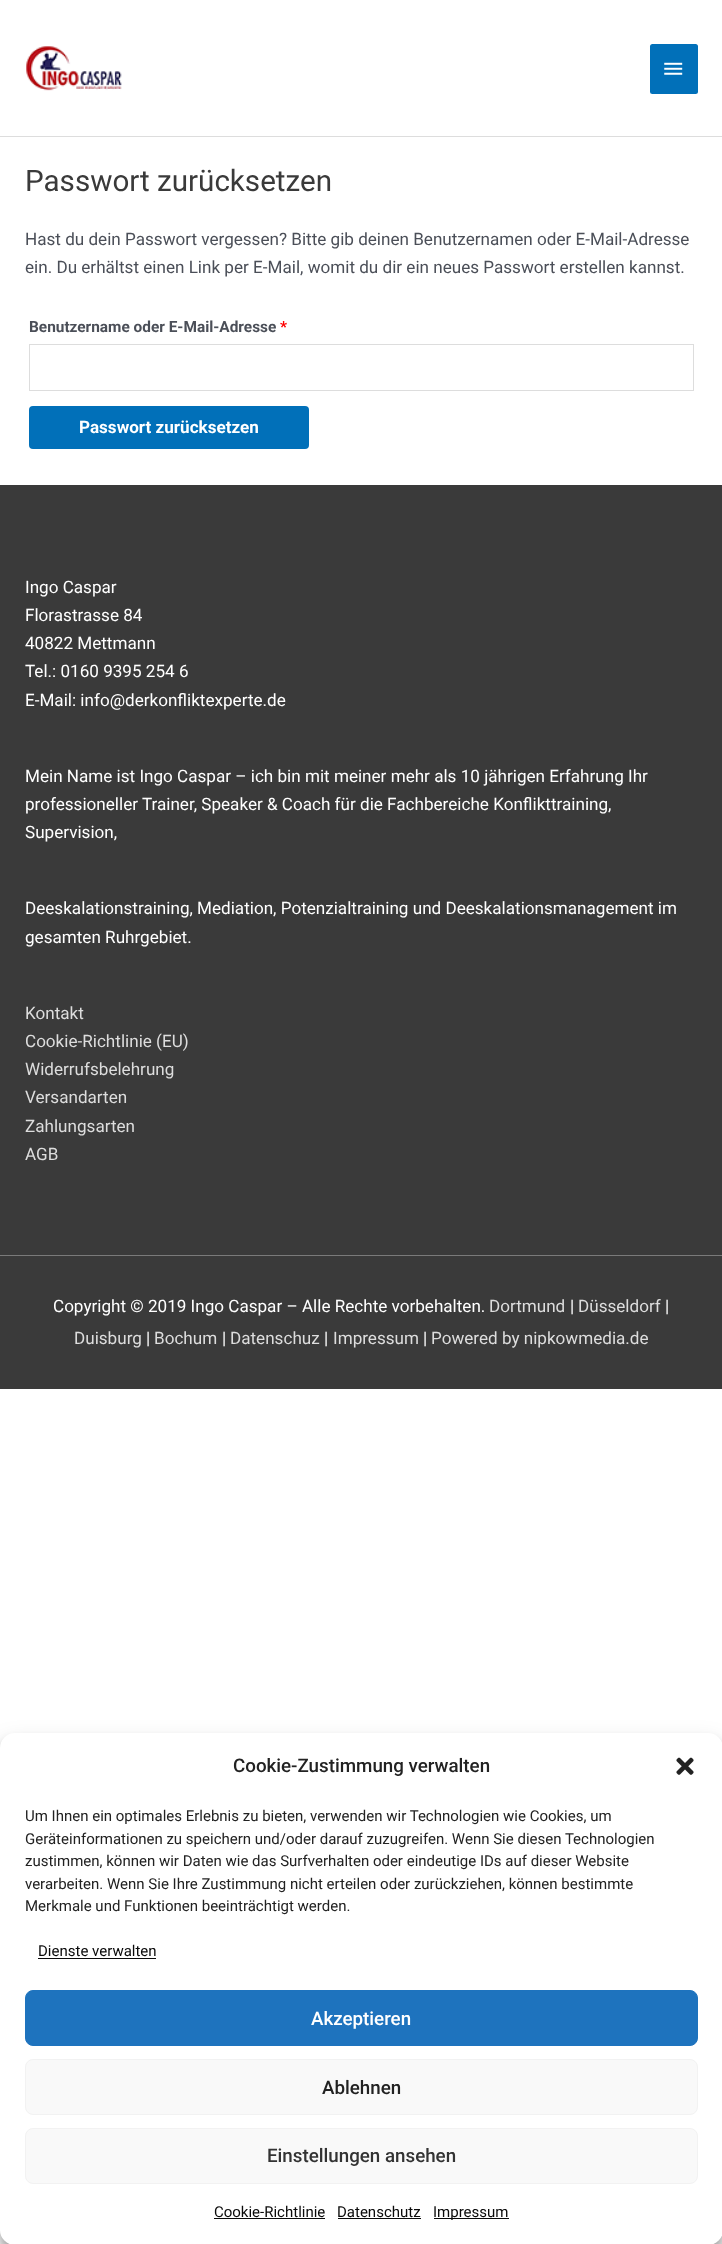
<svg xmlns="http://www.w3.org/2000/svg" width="722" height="2244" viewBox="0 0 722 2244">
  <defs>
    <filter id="blur1" x="-50%" y="-200%" width="200%" height="500%"><feGaussianBlur stdDeviation="4"/></filter>
    <filter id="blur2" x="-50%" y="-200%" width="200%" height="500%"><feGaussianBlur stdDeviation="12.5"/></filter>
  </defs>
  <rect width="100%" height="100%" fill="#ffffff"/>
  <rect x="0" y="136" width="722" height="1" fill="#dddddd"/>
  <image x="26" y="46" width="96" height="45" href="img1.png"/>
  <rect x="650" y="44" width="48" height="50" rx="2.5" fill="#0170b9"/>
  <image x="664" y="62" width="19" height="13" href="img2.png"/>
  <text x="25" y="191" font-family="Roboto" font-size="29.6" fill="#3a3a3a">Passwort zurücksetzen</text>
  <text x="25" y="245" font-family="Roboto" font-size="17.1" fill="#4b4f58">Hast du dein Passwort vergessen? Bitte gib deinen Benutzernamen oder E-Mail-Adresse</text>
  <text x="25" y="273" font-family="Roboto" font-size="17.1" fill="#4b4f58">ein. Du erhältst einen Link per E-Mail, womit du dir ein neues Passwort erstellen kannst.</text>
  <text x="29" y="332" font-family="Roboto" font-size="15.4" font-weight="bold" fill="#4b4f58">Benutzername oder E-Mail-Adresse</text>
  <text x="280" y="332" font-family="Roboto" font-size="15.4" font-weight="bold" fill="#ff0000">*</text>
  <rect x="29.5" y="344.5" width="664" height="46" fill="none" stroke="#dddddd"/>
  <rect x="29" y="406" width="280" height="43" rx="4" fill="#0170b9"/>
  <text x="79" y="433" font-family="Roboto" font-size="17.1" font-weight="bold" fill="#ffffff">Passwort zurücksetzen</text>
  <rect x="0" y="485" width="722" height="770" fill="#3a3a3a"/>
  <text x="25" y="593" font-family="Roboto" font-size="17.1" fill="#ffffff">Ingo Caspar</text>
  <text x="25" y="621" font-family="Roboto" font-size="17.1" fill="#ffffff">Florastrasse 84</text>
  <text x="25" y="649" font-family="Roboto" font-size="17.1" fill="#ffffff">40822 Mettmann</text>
  <text x="25" y="677" font-family="Roboto" font-size="17.1" fill="#ffffff">Tel.: 0160 9395 254 6</text>
  <text x="25" y="706" font-family="Roboto" font-size="17.1" fill="#ffffff">E-Mail: info@derkonfliktexperte.de</text>
  <text x="25" y="782" font-family="Roboto" font-size="17.1" fill="#ffffff">Mein Name ist Ingo Caspar – ich bin mit meiner mehr als 10 jährigen Erfahrung Ihr</text>
  <text x="25" y="810" font-family="Roboto" font-size="17.1" fill="#ffffff">professioneller Trainer, Speaker &amp; Coach für die Fachbereiche Konflikttraining,</text>
  <text x="25" y="838" font-family="Roboto" font-size="17.1" fill="#ffffff">Supervision,</text>
  <text x="25" y="914" font-family="Roboto" font-size="17.1" fill="#ffffff">Deeskalationstraining, Mediation, Potenzialtraining und Deeskalationsmanagement im</text>
  <text x="25" y="943" font-family="Roboto" font-size="17.1" fill="#ffffff">gesamten Ruhrgebiet.</text>
  <text x="25" y="1019" font-family="Roboto" font-size="17.1" fill="#dddddd">Kontakt</text>
  <text x="25" y="1047" font-family="Roboto" font-size="17.1" fill="#dddddd">Cookie-Richtlinie (EU)</text>
  <text x="25" y="1075" font-family="Roboto" font-size="17.1" fill="#dddddd">Widerrufsbelehrung</text>
  <text x="25" y="1103" font-family="Roboto" font-size="17.1" fill="#dddddd">Versandarten</text>
  <text x="25" y="1132" font-family="Roboto" font-size="17.1" fill="#dddddd">Zahlungsarten</text>
  <text x="25" y="1160" font-family="Roboto" font-size="17.1" fill="#dddddd">AGB</text>
  <rect x="0" y="1255" width="722" height="1" fill="#7a7a7a"/>
  <rect x="0" y="1256" width="722" height="133" fill="#3a3a3a"/>
  <text x="53" y="1312" font-family="Roboto" font-size="17.1" fill="#ffffff">Copyright © 2019 Ingo Caspar – Alle Rechte vorbehalten.</text>
  <text x="489" y="1312" font-family="Roboto" font-size="17.1" fill="#dddddd">Dortmund</text>
  <text x="570" y="1312" font-family="Roboto" font-size="17.1" fill="#ffffff">|</text>
  <text x="578" y="1312" font-family="Roboto" font-size="17.1" fill="#dddddd">Düsseldorf</text>
  <text x="665" y="1312" font-family="Roboto" font-size="17.1" fill="#ffffff">|</text>
  <text x="74" y="1344" font-family="Roboto" font-size="17.1" fill="#dddddd">Duisburg</text>
  <text x="146" y="1344" font-family="Roboto" font-size="17.1" fill="#ffffff">|</text>
  <text x="154" y="1344" font-family="Roboto" font-size="17.1" fill="#dddddd">Bochum</text>
  <text x="222" y="1344" font-family="Roboto" font-size="17.1" fill="#ffffff">|</text>
  <text x="230" y="1344" font-family="Roboto" font-size="17.1" fill="#dddddd">Datenschuz</text>
  <text x="324" y="1344" font-family="Roboto" font-size="17.1" fill="#ffffff">|</text>
  <text x="333" y="1344" font-family="Roboto" font-size="17.1" fill="#dddddd">Impressum</text>
  <text x="423" y="1344" font-family="Roboto" font-size="17.1" fill="#ffffff">|</text>
  <text x="431" y="1344" font-family="Roboto" font-size="17.1" fill="#dddddd">Powered by nipkowmedia.de</text>
  <rect x="0" y="1740" width="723" height="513" rx="15" fill="#000000" fill-opacity="0.23" filter="url(#blur1)"/>
  <rect x="0" y="1745" width="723" height="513" rx="15" fill="#000000" fill-opacity="0.19" filter="url(#blur2)"/>
  <rect x="0" y="1733" width="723" height="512" rx="15" fill="#ffffff"/>
  <text x="233" y="1772" font-family="Roboto" font-size="18.75" font-weight="500" fill="#222222">Cookie-Zustimmung verwalten</text>
  <image x="676" y="1757" width="18" height="18" href="img3.png"/>
  <text x="25" y="1821" font-family="Roboto" font-size="15" fill="#222222">Um Ihnen ein optimales Erlebnis zu bieten, verwenden wir Technologien wie Cookies, um</text>
  <text x="25" y="1844" font-family="Roboto" font-size="15" fill="#222222">Geräteinformationen zu speichern und/oder darauf zuzugreifen. Wenn Sie diesen Technologien</text>
  <text x="25" y="1866" font-family="Roboto" font-size="15" fill="#222222">zustimmen, können wir Daten wie das Surfverhalten oder eindeutige IDs auf dieser Website</text>
  <text x="25" y="1889" font-family="Roboto" font-size="15" fill="#222222">verarbeiten. Wenn Sie Ihre Zustimmung nicht erteilen oder zurückziehen, können bestimmte</text>
  <text x="25" y="1911" font-family="Roboto" font-size="15" fill="#222222">Merkmale und Funktionen beeinträchtigt werden.</text>
  <text x="38" y="1956" font-family="Roboto" font-size="15" fill="#0a0a0a">Dienste verwalten</text>
  <rect x="38" y="1958" width="118" height="1" fill="#0a0a0a"/>
  <rect x="25.5" y="1990.5" width="672" height="55" rx="7.5" fill="#1e73be" stroke="#1e73be"/>
  <text x="311" y="2025" font-family="Roboto" font-size="18.75" font-weight="500" fill="#ffffff">Akzeptieren</text>
  <rect x="25.5" y="2059.5" width="672" height="55" rx="7.5" fill="#f9f9f9" stroke="#f2f2f2"/>
  <text x="322" y="2094" font-family="Roboto" font-size="18.75" font-weight="500" fill="#222222">Ablehnen</text>
  <rect x="25.5" y="2128.5" width="672" height="55" rx="7.5" fill="#f9f9f9" stroke="#f2f2f2"/>
  <text x="267" y="2162" font-family="Roboto" font-size="18.75" font-weight="500" fill="#333333">Einstellungen ansehen</text>
  <text x="214" y="2217" font-family="Roboto" font-size="15" fill="#0a0a0a">Cookie-Richtlinie</text>
  <rect x="214" y="2218" width="111" height="1" fill="#0a0a0a"/>
  <text x="337" y="2217" font-family="Roboto" font-size="15" fill="#0a0a0a">Datenschutz</text>
  <rect x="338" y="2218" width="83" height="1" fill="#0a0a0a"/>
  <rect x="434" y="2218" width="75" height="1" fill="#0a0a0a"/>
  <text x="433" y="2217" font-family="Roboto" font-size="15" fill="#0a0a0a">Impressum</text>
</svg>
